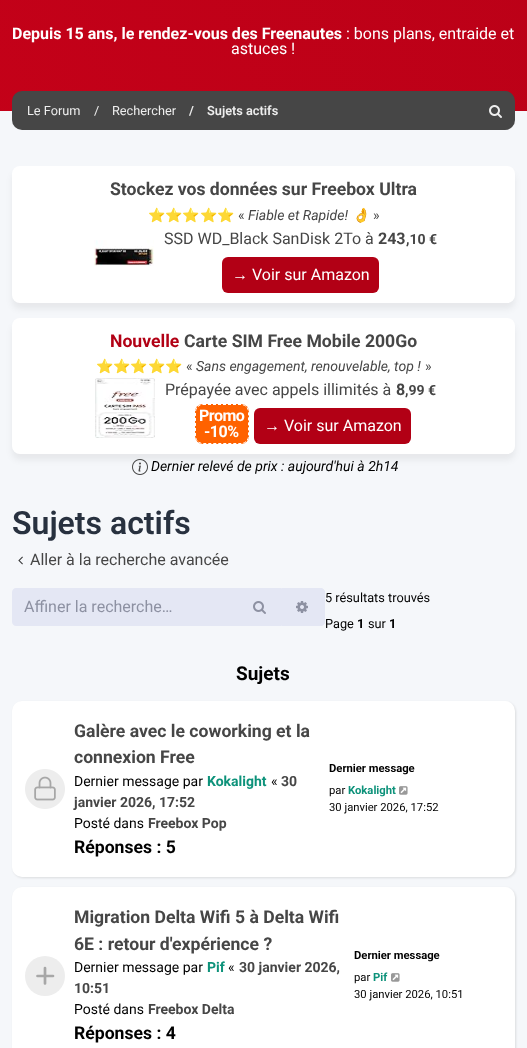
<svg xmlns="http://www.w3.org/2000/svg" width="527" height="1048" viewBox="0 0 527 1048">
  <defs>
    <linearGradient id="g1" gradientUnits="userSpaceOnUse" x1="16" y1="786" x2="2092" y2="-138"><stop offset="0" stop-color="#c70119"/><stop offset="1" stop-color="#a70014"/></linearGradient>
    <filter id="blur1" x="-50%" y="-200%" width="200%" height="500%"><feGaussianBlur stdDeviation="3"/></filter>
    <filter id="blur2" x="-50%" y="-200%" width="200%" height="500%"><feGaussianBlur stdDeviation="1"/></filter>
  </defs>
  <rect width="100%" height="100%" fill="#f5f7fa"/>
  <rect x="0" y="0" width="527" height="111" fill="url(#g1)"/>
  <text x="12" y="39" font-family="Roboto" font-size="16" font-weight="bold" fill="#ffffff">Depuis 15 ans, le rendez-vous des Freenautes</text>
  <text x="346" y="39" font-family="Roboto" font-size="16" fill="#ffffff">: bons plans, entraide et</text>
  <text x="231" y="54" font-family="Roboto" font-size="16" fill="#ffffff">astuces !</text>
  <rect x="12" y="91" width="503" height="39" rx="10" fill="#464646"/>
  <text x="27" y="115" font-family="Roboto" font-size="12.75" fill="#eeeeee">Le Forum</text>
  <text x="94" y="115" font-family="Roboto" font-size="12.75" fill="#eeeeee">/</text>
  <text x="112" y="115" font-family="Roboto" font-size="12.75" fill="#eeeeee">Rechercher</text>
  <text x="189" y="115" font-family="Roboto" font-size="12.75" font-weight="600" fill="#eeeeee">/</text>
  <text x="207" y="115" font-family="Roboto" font-size="12.75" font-weight="600" fill="#eeeeee">Sujets actifs</text>
  <image x="489" y="105" width="13" height="13" href="img1.png"/>
  <rect x="12" y="172" width="503" height="137" rx="8" fill="#171717" fill-opacity="0.06" filter="url(#blur1)"/>
  <rect x="12" y="166" width="503" height="137" rx="8" fill="#ffffff"/>
  <text x="110" y="195" font-family="Roboto" font-size="17.6" font-weight="bold" fill="#464646">Stockez vos données sur Freebox Ultra</text>
  <text x="148" y="220" font-family="Noto Color Emoji" font-size="14" fill="#464646">⭐⭐⭐⭐⭐</text>
  <text x="238" y="220" font-family="Roboto" font-size="14" fill="#464646">«</text>
  <text x="248" y="220" font-family="Roboto" font-size="14" font-style="italic" fill="#464646">Fiable et Rapide!</text>
  <text x="352" y="220" font-family="Noto Color Emoji" font-size="14" font-style="italic" fill="#464646">👌</text>
  <text x="373" y="220" font-family="Roboto" font-size="14" fill="#464646">»</text>
  <image x="94" y="240" width="60" height="26" href="img2.png"/>
  <text x="164" y="244" font-family="Roboto" font-size="16" fill="#464646">SSD WD_Black SanDisk 2To à</text>
  <text x="378" y="244" font-family="Roboto" font-size="16" font-weight="bold" fill="#464646">243</text>
  <text x="406" y="244" font-family="Roboto" font-size="14" font-weight="bold" fill="#464646">,10 €</text>
  <rect x="222" y="257" width="157" height="36" rx="6" fill="#b20015"/>
  <text x="232" y="280" font-family="Liberation Sans" font-size="16" fill="#ffffff">→</text>
  <text x="252" y="280" font-family="Roboto" font-size="16" fill="#ffffff">Voir sur Amazon</text>
  <rect x="12" y="324" width="503" height="136" rx="8" fill="#171717" fill-opacity="0.06" filter="url(#blur1)"/>
  <rect x="12" y="318" width="503" height="136" rx="8" fill="#ffffff"/>
  <text x="110" y="347" font-family="Roboto" font-size="17.6" font-weight="bold" fill="#b20115">Nouvelle</text>
  <text x="184" y="347" font-family="Roboto" font-size="17.6" font-weight="bold" fill="#464646">Carte SIM Free Mobile 200Go</text>
  <text x="96" y="371" font-family="Noto Color Emoji" font-size="14" fill="#464646">⭐⭐⭐⭐⭐</text>
  <text x="186" y="371" font-family="Roboto" font-size="14" fill="#464646">«</text>
  <text x="196" y="371" font-family="Roboto" font-size="14" font-style="italic" fill="#464646">Sans engagement, renouvelable, top !</text>
  <text x="425" y="371" font-family="Roboto" font-size="14" fill="#464646">»</text>
  <image x="95" y="378" width="60" height="60" href="img3.png"/>
  <text x="165" y="395" font-family="Roboto" font-size="16" fill="#464646">Prépayée avec appels illimités à</text>
  <text x="396" y="395" font-family="Roboto" font-size="16" font-weight="bold" fill="#464646">8</text>
  <text x="405" y="395" font-family="Roboto" font-size="14" font-weight="bold" fill="#464646">,99 €</text>
  <rect x="195" y="404" width="54" height="40" rx="8" fill="#ff6200"/>
  <path d="M203 404.5H241C245 404.5 248.5 408 248.5 412V436C248.5 440 245 443.5 241 443.5H203C199 443.5 195.5 440 195.5 436V412C195.5 408 199 404.5 203 404.5Z" fill="none" stroke="#ffffff" stroke-dasharray="3 2"/>
  <text x="199" y="421" font-family="Roboto" font-size="16" font-weight="bold" letter-spacing="-0.5" fill="#ffffff">Promo</text>
  <text x="204" y="437" font-family="Roboto" font-size="16" font-weight="bold" letter-spacing="-0.5" fill="#ffffff">-10%</text>
  <rect x="254" y="408" width="157" height="36" rx="6" fill="#b20015"/>
  <text x="264" y="431" font-family="Liberation Sans" font-size="16" fill="#ffffff">→</text>
  <text x="284" y="431" font-family="Roboto" font-size="16" fill="#ffffff">Voir sur Amazon</text>
  <image x="132" y="459" width="16" height="16" href="img4.png"/>
  <text x="151" y="471" font-family="Roboto" font-size="14" font-style="italic" fill="#000000">Dernier relevé de prix : aujourd'hui à 2h14</text>
  <text x="12" y="534" font-family="Roboto" font-size="32" font-weight="600" fill="#28313f">Sujets actifs</text>
  <image x="18" y="556" width="5" height="9" href="img5.png"/>
  <text x="30" y="565" font-family="Roboto" font-size="16" fill="#464646">Aller à la recherche avancée</text>
  <path d="M16 588H239V626H16C14 626 12 624 12 622V592C12 590 14 588 16 588Z" fill="#e4e7f4"/>
  <text x="24" y="612" font-family="Roboto" font-size="16" fill="#8d91a2">Affiner la recherche…</text>
  <rect x="239" y="588" width="42" height="38" fill="#e4e7f4"/>
  <image x="253" y="601" width="13" height="13" href="img6.png"/>
  <path d="M281.5 588.5H321C323 588.5 324.5 590 324.5 592V622C324.5 624 323 625.5 321 625.5H281.5Z" fill="#e4e7f4" stroke="#e4e7f4"/>
  <image x="296" y="601" width="12" height="12" href="img7.png"/>
  <text x="325" y="602" font-family="Roboto" font-size="12.75" fill="#000000">5 résultats trouvés</text>
  <text x="325" y="628" font-family="Roboto" font-size="12.75" fill="#000000">Page</text>
  <text x="357" y="628" font-family="Roboto" font-size="12.75" font-weight="bold" fill="#000000">1</text>
  <text x="368" y="628" font-family="Roboto" font-size="12.75" fill="#000000">sur</text>
  <text x="389" y="628" font-family="Roboto" font-size="12.75" font-weight="bold" fill="#000000">1</text>
  <text x="236" y="680" font-family="Roboto" font-size="19" font-weight="bold" fill="#000000">Sujets</text>
  <rect x="13" y="702" width="503" height="176" rx="10" fill="#000000" fill-opacity="0.11" filter="url(#blur2)"/>
  <rect x="12" y="701" width="503" height="176" rx="10" fill="#ffffff"/>
  <image x="25" y="769" width="40" height="40" href="img8.png"/>
  <text x="74" y="737" font-family="Roboto" font-size="17.6" font-weight="bold" fill="#464646">Galère avec le coworking et la</text>
  <text x="74" y="763" font-family="Roboto" font-size="17.6" font-weight="bold" fill="#464646">connexion Free</text>
  <text x="74" y="786" font-family="Roboto" font-size="14" fill="#000000">Dernier message par</text>
  <text x="207" y="786" font-family="Roboto" font-size="14" font-weight="bold" fill="#0d927a">Kokalight</text>
  <text x="271" y="786" font-family="Roboto" font-size="14" fill="#000000">«</text>
  <text x="281" y="786" font-family="Roboto" font-size="14" font-weight="bold" fill="#464646">30</text>
  <text x="74" y="807" font-family="Roboto" font-size="14" font-weight="bold" fill="#464646">janvier 2026, 17:52</text>
  <text x="74" y="828" font-family="Roboto" font-size="14" fill="#000000">Posté dans</text>
  <text x="148" y="828" font-family="Roboto" font-size="14" font-weight="bold" fill="#464646">Freebox Pop</text>
  <text x="74" y="853" font-family="Roboto" font-size="17.6" font-weight="bold" fill="#000000">Réponses : 5</text>
  <text x="329" y="772" font-family="Roboto" font-size="11.25" font-weight="bold" fill="#000000">Dernier message</text>
  <text x="329" y="794" font-family="Roboto" font-size="11.25" fill="#000000">par</text>
  <text x="348" y="794" font-family="Roboto" font-size="11.25" font-weight="bold" fill="#0d927a">Kokalight</text>
  <image x="399" y="786" width="9" height="9" href="img9.png"/>
  <text x="329" y="811" font-family="Roboto" font-size="11.25" fill="#000000">30 janvier 2026, 17:52</text>
  <rect x="13" y="888" width="503" height="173" rx="10" fill="#000000" fill-opacity="0.11" filter="url(#blur2)"/>
  <rect x="12" y="887" width="503" height="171" rx="10" fill="#ffffff"/>
  <circle cx="45" cy="976" r="20" fill="#ededed"/>
  <path d="M45 968V983.5M37.5 976H53" fill="none" stroke="#a7a7a7" stroke-width="2.7" stroke-linecap="round" stroke-linejoin="round"/>
  <text x="74" y="923" font-family="Roboto" font-size="17.6" font-weight="bold" fill="#464646">Migration Delta Wifi 5 à Delta Wifi</text>
  <text x="74" y="950" font-family="Roboto" font-size="17.6" font-weight="bold" fill="#464646">6E : retour d'expérience ?</text>
  <text x="74" y="972" font-family="Roboto" font-size="14" fill="#000000">Dernier message par</text>
  <text x="207" y="972" font-family="Roboto" font-size="14" font-weight="bold" fill="#0d927a">Pif</text>
  <text x="228" y="972" font-family="Roboto" font-size="14" fill="#000000">«</text>
  <text x="239" y="972" font-family="Roboto" font-size="14" font-weight="bold" fill="#464646">30 janvier 2026,</text>
  <text x="74" y="993" font-family="Roboto" font-size="14" font-weight="bold" fill="#464646">10:51</text>
  <text x="74" y="1014" font-family="Roboto" font-size="14" fill="#000000">Posté dans</text>
  <text x="148" y="1014" font-family="Roboto" font-size="14" font-weight="bold" fill="#464646">Freebox Delta</text>
  <text x="74" y="1039" font-family="Roboto" font-size="17.6" font-weight="bold" fill="#000000">Réponses : 4</text>
  <text x="354" y="959" font-family="Roboto" font-size="11.25" font-weight="bold" fill="#000000">Dernier message</text>
  <text x="354" y="981" font-family="Roboto" font-size="11.25" fill="#000000">par</text>
  <text x="373" y="981" font-family="Roboto" font-size="11.25" font-weight="bold" fill="#0d927a">Pif</text>
  <image x="391" y="973" width="9" height="9" href="img9.png"/>
  <text x="354" y="998" font-family="Roboto" font-size="11.25" fill="#000000">30 janvier 2026, 10:51</text>
</svg>
